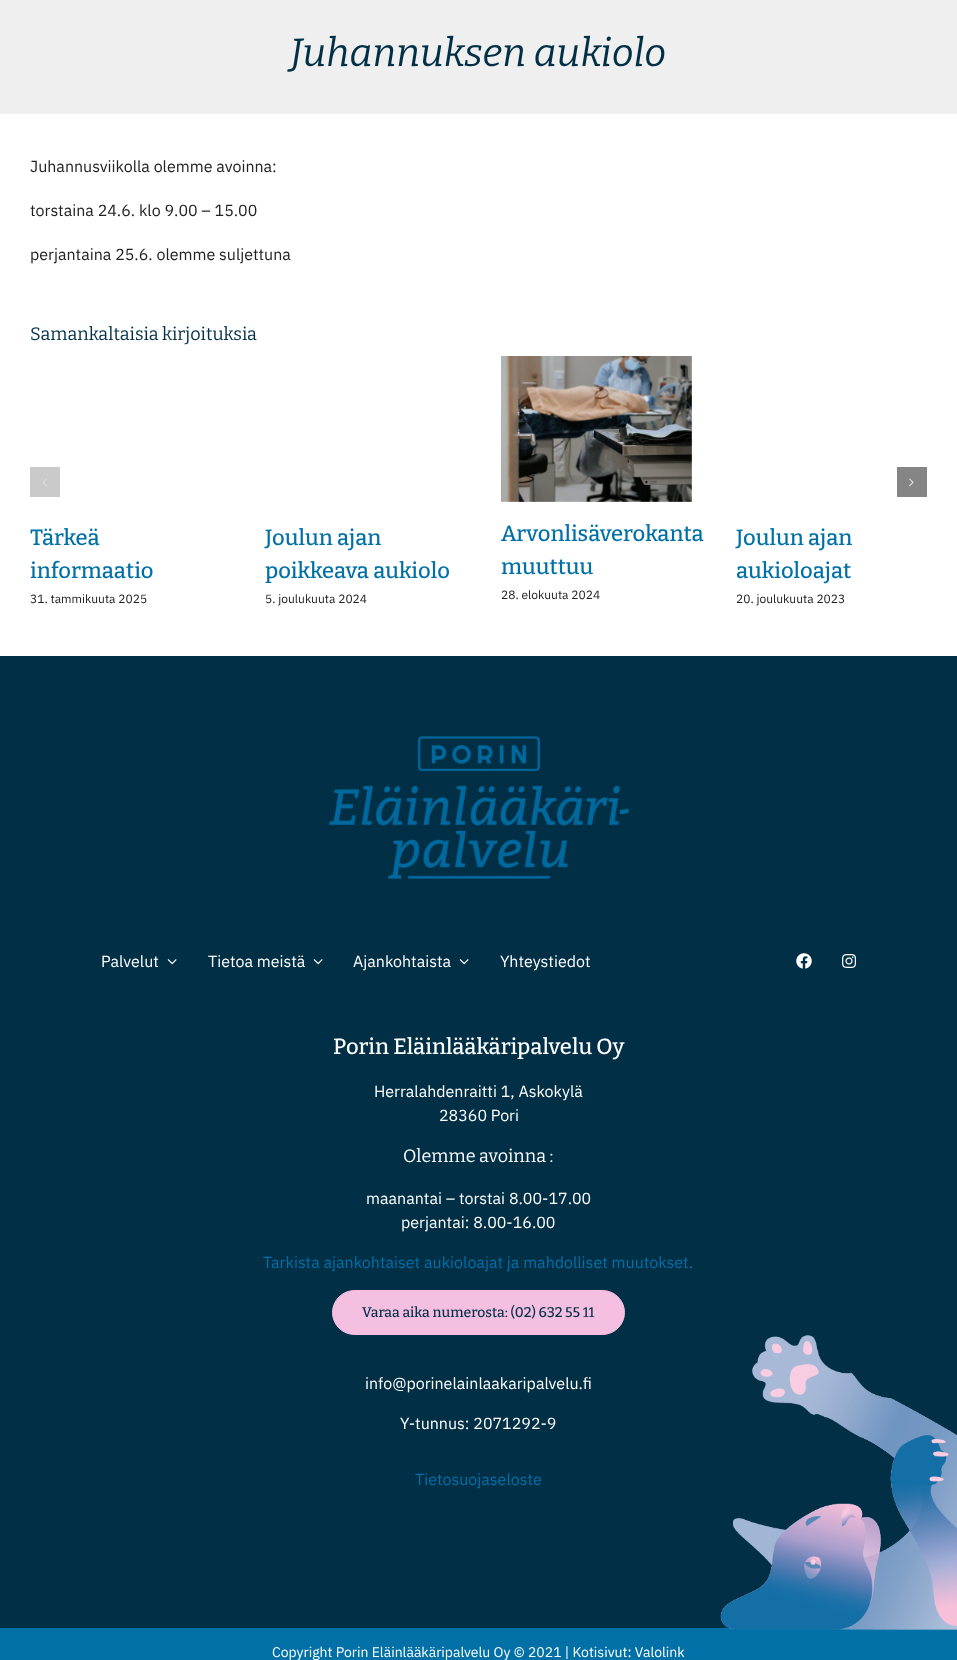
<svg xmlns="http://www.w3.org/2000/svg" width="957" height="1660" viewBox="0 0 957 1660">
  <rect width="100%" height="100%" fill="#ffffff"/>
  <rect x="0" y="0" width="957" height="114" fill="#efefef"/>
  <text x="290" y="66" font-family="Bitter" font-size="39.25" font-style="italic" fill="#002f46">Juhannuksen aukiolo</text>
  <text x="30" y="172" font-family="IBM Plex Sans" font-size="16" fill="#222222">Juhannusviikolla olemme avoinna:</text>
  <text x="30" y="216" font-family="IBM Plex Sans" font-size="16" fill="#222222">torstaina 24.6. klo 9.00 – 15.00</text>
  <text x="30" y="260" font-family="IBM Plex Sans" font-size="16" fill="#222222">perjantaina 25.6. olemme suljettuna</text>
  <text x="30" y="340" font-family="Bitter" font-size="18" fill="#002f46">Samankaltaisia kirjoituksia</text>
  <rect x="30" y="467" width="30" height="30" fill="#cacaca"/>
  <image x="42" y="478" width="5" height="8" href="img1.png"/>
  <rect x="897" y="467" width="30" height="30" fill="#858585"/>
  <image x="909" y="478" width="5" height="9" href="img2.png"/>
  <text x="30" y="545" font-family="Bitter" font-size="22" font-weight="500" fill="#0070a7">Tärkeä</text>
  <text x="30" y="578" font-family="Bitter" font-size="22" font-weight="500" fill="#0070a7">informaatio</text>
  <text x="30" y="603" font-family="IBM Plex Sans" font-size="12" fill="#222222">31. tammikuuta 2025</text>
  <text x="265" y="545" font-family="Bitter" font-size="22" font-weight="500" fill="#0070a7">Joulun ajan</text>
  <text x="265" y="578" font-family="Bitter" font-size="22" font-weight="500" fill="#0070a7">poikkeava aukiolo</text>
  <text x="265" y="603" font-family="IBM Plex Sans" font-size="12" fill="#222222">5. joulukuuta 2024</text>
  <image x="501" y="356" width="191" height="146" href="img3.png"/>
  <text x="501" y="541" font-family="Bitter" font-size="22" font-weight="500" fill="#0070a7">Arvonlisäverokanta</text>
  <text x="501" y="574" font-family="Bitter" font-size="22" font-weight="500" fill="#0070a7">muuttuu</text>
  <text x="501" y="599" font-family="IBM Plex Sans" font-size="12" fill="#222222">28. elokuuta 2024</text>
  <text x="736" y="545" font-family="Bitter" font-size="22" font-weight="500" fill="#0070a7">Joulun ajan</text>
  <text x="736" y="578" font-family="Bitter" font-size="22" font-weight="500" fill="#0070a7">aukioloajat</text>
  <text x="736" y="603" font-family="IBM Plex Sans" font-size="12" fill="#222222">20. joulukuuta 2023</text>
  <rect x="0" y="656" width="957" height="972" fill="#002f46"/>
  <image x="329" y="736" width="300" height="143" href="img4.png"/>
  <text x="101" y="967" font-family="IBM Plex Sans" font-size="16" fill="#ffffff">Palvelut</text>
  <image x="167" y="959" width="10" height="6" href="img5.png"/>
  <text x="208" y="967" font-family="IBM Plex Sans" font-size="16" fill="#ffffff">Tietoa meistä</text>
  <image x="313" y="959" width="10" height="6" href="img5.png"/>
  <text x="353" y="967" font-family="IBM Plex Sans" font-size="16" fill="#ffffff">Ajankohtaista</text>
  <image x="459" y="959" width="10" height="6" href="img5.png"/>
  <text x="500" y="967" font-family="IBM Plex Sans" font-size="16" fill="#ffffff">Yhteystiedot</text>
  <image x="796" y="953" width="16" height="16" href="img6.png"/>
  <image x="842" y="954" width="15" height="14" href="img7.png"/>
  <text x="333" y="1054" font-family="Bitter" font-size="22" font-weight="500" fill="#ffffff">Porin Eläinlääkäripalvelu Oy</text>
  <text x="374" y="1097" font-family="IBM Plex Sans" font-size="16" fill="#ffffff">Herralahdenraitti 1, Askokylä</text>
  <text x="439" y="1121" font-family="IBM Plex Sans" font-size="16" fill="#ffffff">28360 Pori</text>
  <text x="403" y="1162" font-family="Bitter" font-size="18" fill="#ffffff">Olemme avoinna :</text>
  <text x="366" y="1204" font-family="IBM Plex Sans" font-size="16" fill="#ffffff">maanantai – torstai 8.00-17.00</text>
  <text x="401" y="1228" font-family="IBM Plex Sans" font-size="16" fill="#ffffff">perjantai: 8.00-16.00</text>
  <text x="263" y="1268" font-family="IBM Plex Sans" font-size="16" fill="#0070a7">Tarkista ajankohtaiset aukioloajat ja mahdolliset muutokset.</text>
  <rect x="332.5" y="1290.5" width="292" height="44" rx="22" fill="#f4bfe1" stroke="#f4bfe1"/>
  <text x="362" y="1317" font-family="Bitter" font-size="14" font-weight="500" fill="#002f46">Varaa aika numerosta: (02) 632 55 11</text>
  <text x="365" y="1389" font-family="IBM Plex Sans" font-size="16" fill="#ffffff">info@porinelainlaakaripalvelu.fi</text>
  <text x="400" y="1429" font-family="IBM Plex Sans" font-size="16" fill="#ffffff">Y-tunnus: 2071292-9</text>
  <text x="415" y="1485" font-family="IBM Plex Sans" font-size="16" fill="#0070a7">Tietosuojaseloste</text>
  <rect x="0" y="1628" width="957" height="32" fill="#0070a7"/>
  <image x="720" y="1335" width="237" height="295" href="img8.png"/>
  <text x="272" y="1657" font-family="IBM Plex Sans" font-size="14" fill="#ffffff">Copyright Porin Eläinlääkäripalvelu Oy © 2021 | Kotisivut: Valolink</text>
</svg>
